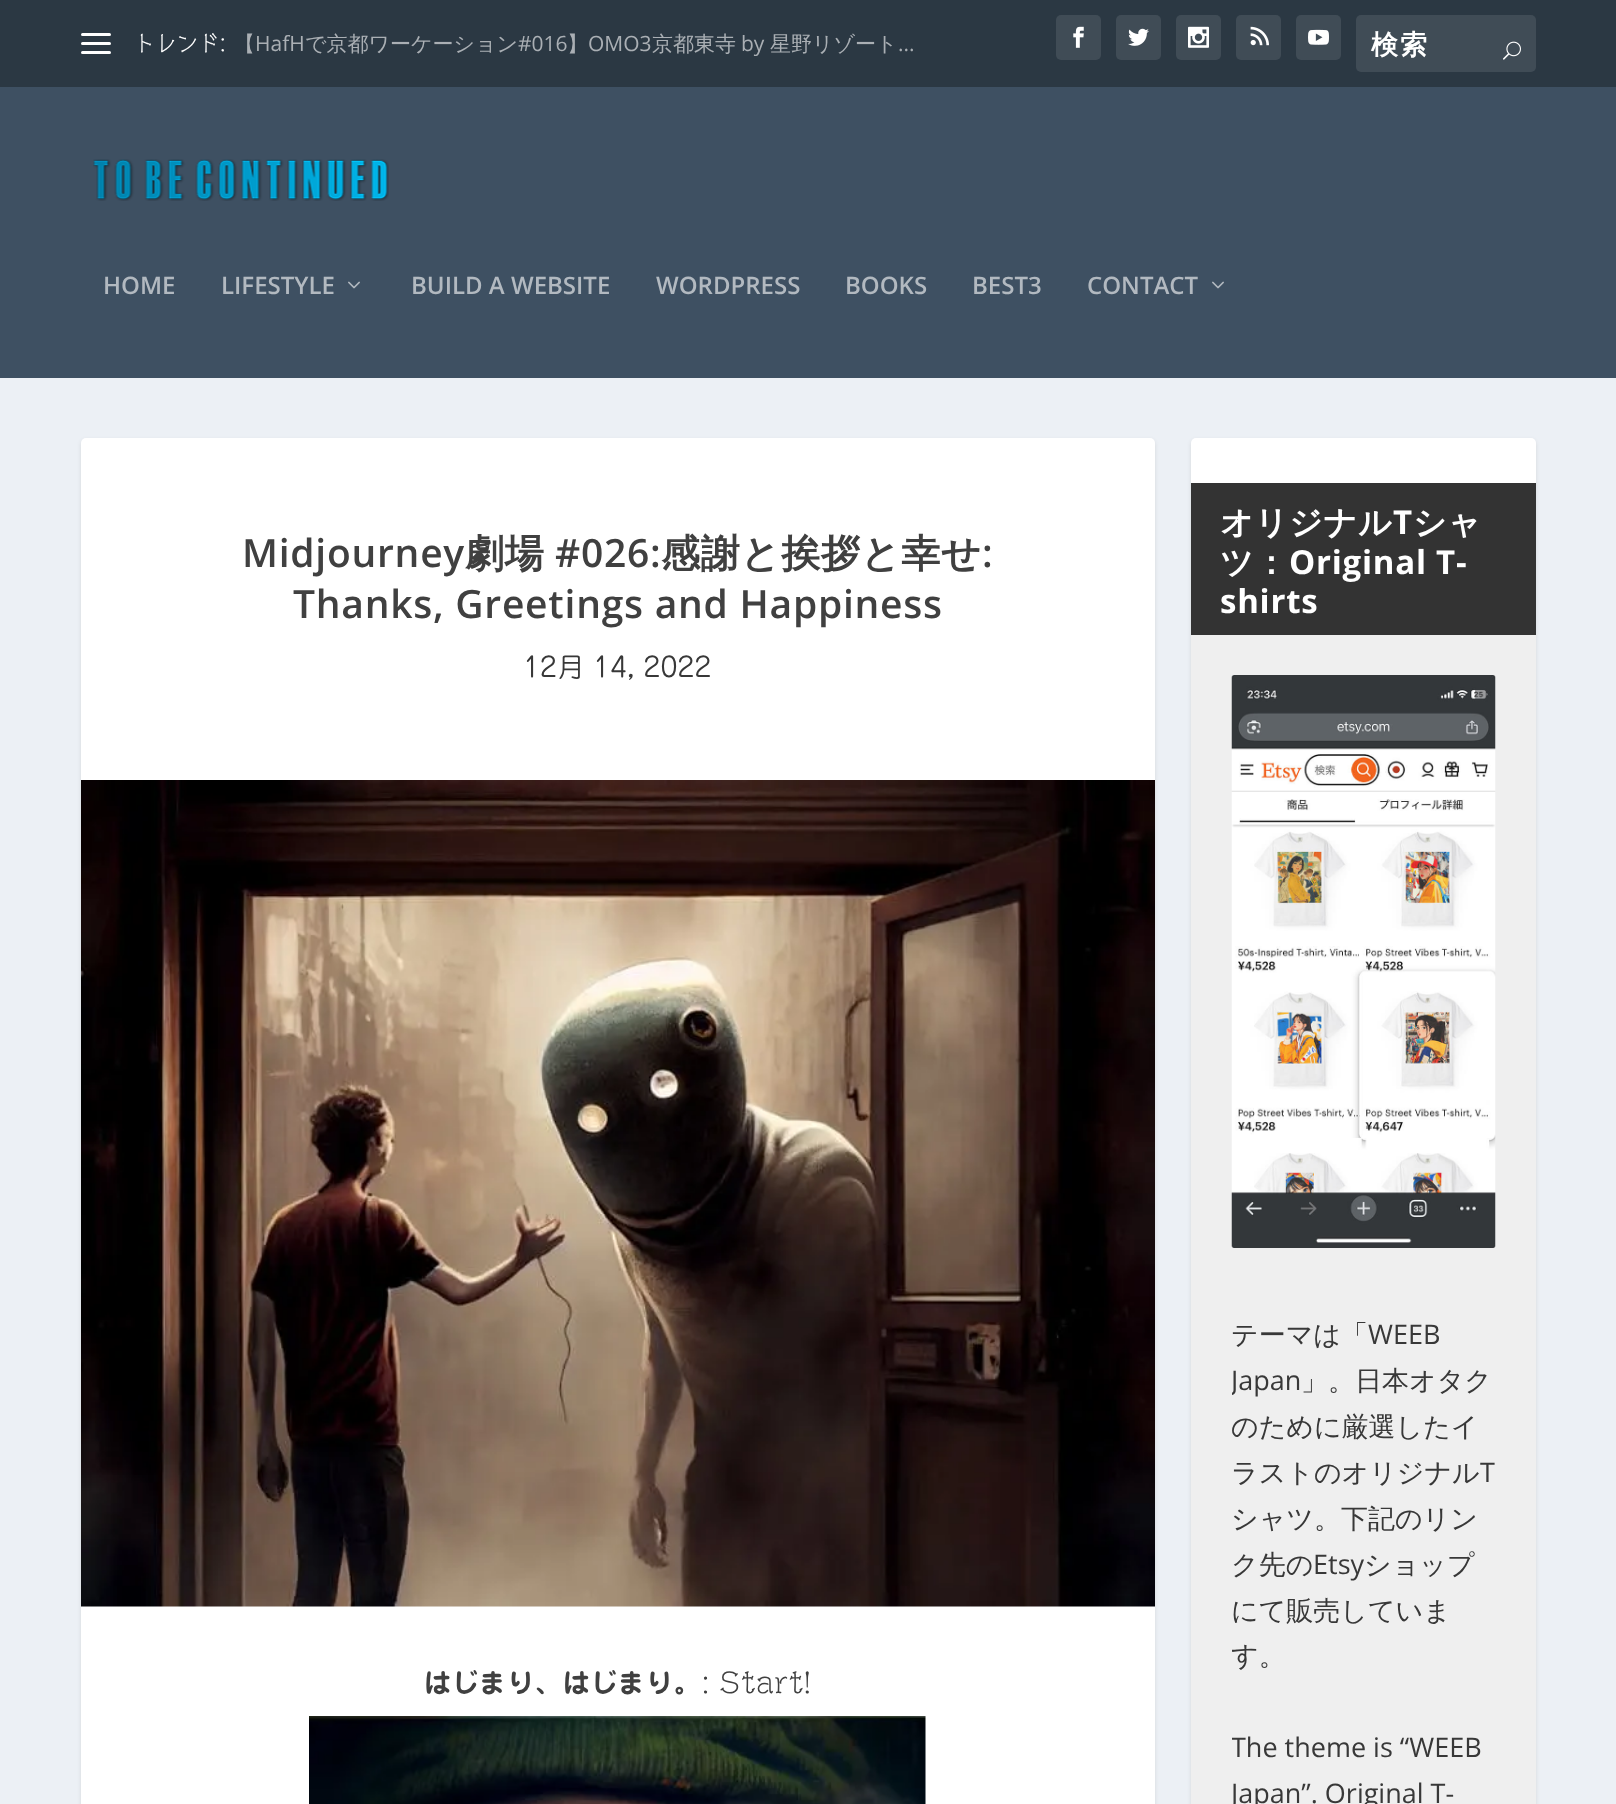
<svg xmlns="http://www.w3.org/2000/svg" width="1616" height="1804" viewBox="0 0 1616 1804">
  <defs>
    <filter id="blur1" x="-50%" y="-200%" width="200%" height="500%"><feGaussianBlur stdDeviation="2"/></filter>
    <clipPath id="clip1"><rect x="1232" y="1311" width="264" height="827"/></clipPath>
  </defs>
  <rect width="100%" height="100%" fill="#ecf0f5"/>
  <rect x="0" y="0" width="1616" height="87" fill="#2b3843"/>
  <rect x="81" y="33" width="30" height="3" rx="1.5" fill="#ffffff"/>
  <rect x="81" y="42" width="30" height="3" rx="1.5" fill="#ffffff"/>
  <rect x="81" y="51" width="30" height="3" rx="1.5" fill="#ffffff"/>
  <text x="133" y="51" font-family="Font" font-size="21" font-weight="300" letter-spacing="0.75" fill="#ffffff">トレンド:</text>
  <text x="234" y="51" font-family="WenQuanYi Zen Hei" font-size="21" font-weight="500" fill="#aaafb4">【</text>
  <text x="255" y="51" font-family="Open Sans" font-size="21" fill="#aaafb4">HafH</text>
  <text x="305" y="51" font-family="WenQuanYi Zen Hei" font-size="21" font-weight="500" fill="#aaafb4">で京都ワーケーション</text>
  <text x="518" y="51" font-family="Open Sans" font-size="21" fill="#aaafb4">#016</text>
  <text x="567" y="51" font-family="WenQuanYi Zen Hei" font-size="21" font-weight="500" fill="#aaafb4">】</text>
  <text x="588" y="51" font-family="Open Sans" font-size="21" fill="#aaafb4">OMO3</text>
  <text x="652" y="51" font-family="WenQuanYi Zen Hei" font-size="21" font-weight="500" fill="#aaafb4">京都東寺</text>
  <text x="741" y="51" font-family="Open Sans" font-size="21" fill="#aaafb4">by</text>
  <text x="770" y="51" font-family="WenQuanYi Zen Hei" font-size="21" font-weight="500" fill="#aaafb4">星野リゾート</text>
  <text x="898" y="51" font-family="Open Sans" font-size="21" fill="#aaafb4">...</text>
  <rect x="1056" y="15" width="45" height="45" rx="5" fill="#404c56"/>
  <image x="1073" y="26" width="11" height="22" href="img1.png"/>
  <rect x="1116" y="15" width="45" height="45" rx="5" fill="#404c56"/>
  <image x="1128" y="28" width="21" height="18" href="img2.png"/>
  <rect x="1176" y="15" width="45" height="45" rx="5" fill="#404c56"/>
  <image x="1188" y="26" width="21" height="22" href="img3.png"/>
  <rect x="1236" y="15" width="45" height="45" rx="5" fill="#404c56"/>
  <image x="1250" y="26" width="19" height="20" href="img4.png"/>
  <rect x="1296" y="15" width="45" height="45" rx="5" fill="#404c56"/>
  <image x="1308" y="29" width="21" height="16" href="img5.png"/>
  <rect x="1356" y="15" width="180" height="57" rx="5" fill="#404c56"/>
  <text x="1371" y="54" font-family="WenQuanYi Zen Hei" font-size="27" font-weight="bold" letter-spacing="2" fill="#ffffff">検索</text>
  <image x="1503" y="41" width="18" height="19" href="img6.png"/>
  <rect x="0" y="87" width="1616" height="291" fill="#3e5062"/>
  <image x="93" y="159" width="296" height="42" href="img7.png"/>
  <text x="103" y="294" font-family="Open Sans" font-size="24" font-weight="600" fill="#b2b9c0">HOME</text>
  <text x="221" y="294" font-family="Open Sans" font-size="24" font-weight="600" fill="#b2b9c0">LIFESTYLE</text>
  <image x="348" y="281" width="12" height="8" href="img8.png"/>
  <text x="411" y="294" font-family="Open Sans" font-size="24" font-weight="600" fill="#b2b9c0">BUILD A WEBSITE</text>
  <text x="656" y="294" font-family="Open Sans" font-size="24" font-weight="600" fill="#b2b9c0">WORDPRESS</text>
  <text x="845" y="294" font-family="Open Sans" font-size="24" font-weight="600" fill="#b2b9c0">BOOKS</text>
  <text x="972" y="294" font-family="Open Sans" font-size="24" font-weight="600" fill="#b2b9c0">BEST3</text>
  <text x="1087" y="294" font-family="Open Sans" font-size="24" font-weight="600" fill="#b2b9c0">CONTACT</text>
  <image x="1212" y="281" width="12" height="8" href="img8.png"/>
  <rect x="81" y="440" width="1074" height="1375" rx="5" fill="#000000" fill-opacity="0.1" filter="url(#blur1)"/>
  <rect x="81" y="438" width="1074" height="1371" rx="5" fill="#ffffff"/>
  <text x="242" y="567" font-family="Open Sans" font-size="39" font-weight="600" letter-spacing="0.75" fill="#404040">Midjourney</text>
  <text x="465" y="567" font-family="WenQuanYi Zen Hei" font-size="39" font-weight="bold" letter-spacing="0.75" fill="#404040">劇場</text>
  <text x="555" y="567" font-family="Open Sans" font-size="39" font-weight="600" letter-spacing="0.75" fill="#404040">#026:</text>
  <text x="661" y="567" font-family="WenQuanYi Zen Hei" font-size="39" font-weight="bold" letter-spacing="0.75" fill="#404040">感謝と挨拶と幸せ</text>
  <text x="982" y="567" font-family="Open Sans" font-size="39" font-weight="600" letter-spacing="0.75" fill="#404040">:</text>
  <text x="293" y="618" font-family="Open Sans" font-size="39" font-weight="600" letter-spacing="0.75" fill="#404040">Thanks, Greetings and Happiness</text>
  <text x="523" y="677" font-family="Font" font-size="27" fill="#383838">12月 14, 2022</text>
  <image x="81" y="780" width="1074" height="827" href="img9.png"/>
  <text x="424" y="1693" font-family="Font" font-size="27" font-weight="600" letter-spacing="0.75" fill="#404040">はじまり、はじまり。</text>
  <text x="702" y="1693" font-family="Font" font-size="27" font-weight="300" letter-spacing="0.75" fill="#404040">: Start!</text>
  <image x="309" y="1716" width="617" height="88" href="img10.png"/>
  <rect x="1191" y="440" width="345" height="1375" rx="5" fill="#000000" fill-opacity="0.1" filter="url(#blur1)"/>
  <rect x="1191" y="438" width="345" height="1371" rx="5" fill="#ffffff"/>
  <rect x="1191" y="635" width="345" height="1169" fill="#efefef"/>
  <rect x="1191" y="483" width="345" height="152" fill="#333333"/>
  <text x="1220" y="534" font-family="WenQuanYi Zen Hei" font-size="33" font-weight="bold" letter-spacing="0.75" fill="#ffffff">オリジナル</text>
  <text x="1393" y="534" font-family="Open Sans" font-size="33" font-weight="bold" letter-spacing="0.75" fill="#ffffff">T</text>
  <text x="1413" y="534" font-family="WenQuanYi Zen Hei" font-size="33" font-weight="bold" letter-spacing="0.75" fill="#ffffff">シャ</text>
  <text x="1220" y="574" font-family="WenQuanYi Zen Hei" font-size="33" font-weight="bold" letter-spacing="0.75" fill="#ffffff">ツ：</text>
  <text x="1289" y="574" font-family="Open Sans" font-size="33" font-weight="bold" letter-spacing="0.75" fill="#ffffff">Original T-</text>
  <text x="1220" y="613" font-family="Open Sans" font-size="33" font-weight="bold" letter-spacing="0.75" fill="#ffffff">shirts</text>
  <image x="1231" y="675" width="265" height="573" href="img11.png"/>
  <text x="1231" y="1344" font-family="WenQuanYi Zen Hei" font-size="27" font-weight="500" fill="#383838">テーマは「</text>
  <text x="1368" y="1344" font-family="Open Sans" font-size="27" fill="#383838">WEEB</text>
  <g clip-path="url(#clip1)">
    <text x="1231" y="1390" font-family="Open Sans" font-size="27" fill="#383838">Japan</text>
  </g>
  <text x="1301" y="1390" font-family="WenQuanYi Zen Hei" font-size="27" font-weight="500" fill="#383838">」。日本オタク</text>
  <text x="1231" y="1436" font-family="WenQuanYi Zen Hei" font-size="27" font-weight="500" fill="#383838">のために厳選したイ</text>
  <text x="1231" y="1482" font-family="WenQuanYi Zen Hei" font-size="27" font-weight="500" fill="#383838">ラストのオリジナル</text>
  <text x="1480" y="1482" font-family="Open Sans" font-size="27" fill="#383838">T</text>
  <text x="1231" y="1528" font-family="WenQuanYi Zen Hei" font-size="27" font-weight="500" fill="#383838">シャツ。下記のリン</text>
  <text x="1231" y="1574" font-family="WenQuanYi Zen Hei" font-size="27" font-weight="500" fill="#383838">ク先の</text>
  <text x="1313" y="1574" font-family="Open Sans" font-size="27" fill="#383838">Etsy</text>
  <text x="1364" y="1574" font-family="WenQuanYi Zen Hei" font-size="27" font-weight="500" fill="#383838">ショップ</text>
  <text x="1231" y="1620" font-family="WenQuanYi Zen Hei" font-size="27" font-weight="500" fill="#383838">にて販売していま</text>
  <g clip-path="url(#clip1)">
    <text x="1231" y="1665" font-family="WenQuanYi Zen Hei" font-size="27" font-weight="500" fill="#383838">す。</text>
    <text x="1231" y="1757" font-family="Open Sans" font-size="27" fill="#383838">The theme is “WEEB</text>
  </g>
  <text x="1231" y="1803" font-family="Open Sans" font-size="27" fill="#383838">Japan”. Original T-</text>
</svg>
